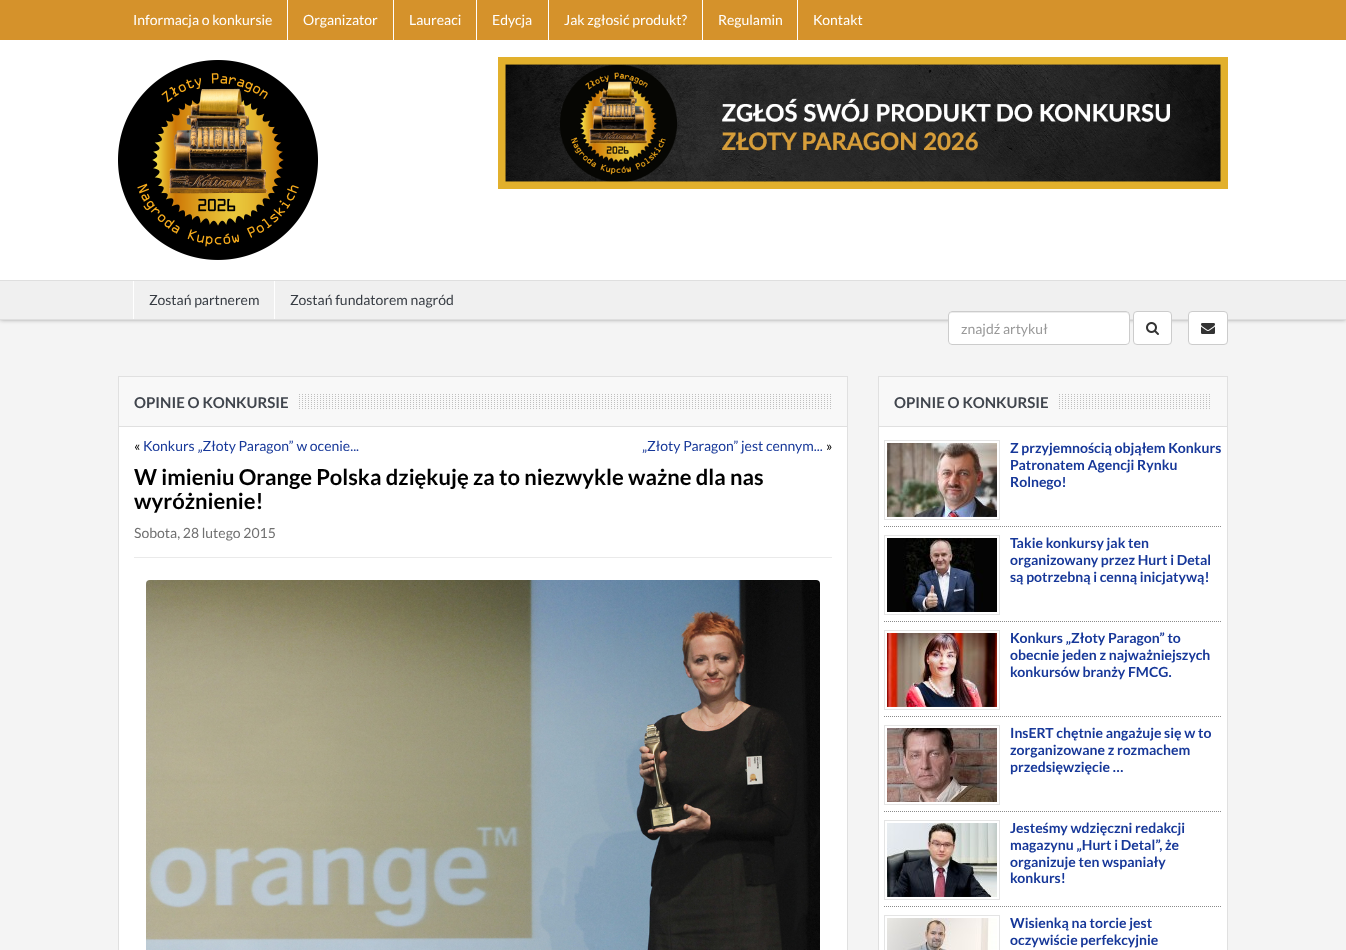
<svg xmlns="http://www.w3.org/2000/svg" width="1346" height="950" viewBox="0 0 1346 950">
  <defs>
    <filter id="blur1" x="-50%" y="-200%" width="200%" height="500%"><feGaussianBlur stdDeviation="2.5"/></filter>
  </defs>
  <rect width="100%" height="100%" fill="#f4f4f4"/>
  <rect x="0" y="-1" width="1346" height="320" fill="#000000" fill-opacity="0.5" filter="url(#blur1)"/>
  <rect x="0" y="40" width="1346" height="240" fill="#ffffff"/>
  <rect x="0" y="0" width="1346" height="40" fill="#d5922b"/>
  <text x="133" y="25" font-family="Lato" font-size="14" fill="#ffffff">Informacja o konkursie</text>
  <rect x="287" y="0" width="1" height="40" fill="#ffffff"/>
  <text x="303" y="25" font-family="Lato" font-size="14" fill="#ffffff">Organizator</text>
  <rect x="393" y="0" width="1" height="40" fill="#ffffff"/>
  <text x="409" y="25" font-family="Lato" font-size="14" fill="#ffffff">Laureaci</text>
  <rect x="476" y="0" width="1" height="40" fill="#ffffff"/>
  <text x="492" y="25" font-family="Lato" font-size="14" fill="#ffffff">Edycja</text>
  <rect x="548" y="0" width="1" height="40" fill="#ffffff"/>
  <text x="564" y="25" font-family="Lato" font-size="14" fill="#ffffff">Jak zgłosić produkt?</text>
  <rect x="702" y="0" width="1" height="40" fill="#ffffff"/>
  <text x="718" y="25" font-family="Lato" font-size="14" fill="#ffffff">Regulamin</text>
  <rect x="797" y="0" width="1" height="40" fill="#ffffff"/>
  <text x="813" y="25" font-family="Lato" font-size="14" fill="#ffffff">Kontakt</text>
  <image x="118" y="60" width="200" height="200" href="img1.png"/>
  <image x="498" y="57" width="730" height="132" href="img2.png"/>
  <rect x="0" y="281" width="1346" height="38" fill="#f0f0f0"/>
  <rect x="0" y="280" width="1346" height="1" fill="#dfdfdf"/>
  <rect x="0" y="319" width="1346" height="1" fill="#dfdfdf"/>
  <rect x="133" y="281" width="1" height="38" fill="#ffffff"/>
  <text x="149" y="305" font-family="Lato" font-size="14" fill="#373c43">Zostań partnerem</text>
  <rect x="274" y="281" width="1" height="38" fill="#ffffff"/>
  <text x="290" y="305" font-family="Lato" font-size="14" fill="#373c43">Zostań fundatorem nagród</text>
  <rect x="948" y="311" width="182" height="34" rx="4" fill="#ffffff"/>
  <path d="M952 313H1127L1128 314L1129 316V315C1129 313 1128 312 1126 312H952C950 312 949 313 949 315V316C949 314 950 313 952 313Z" fill="#ececec"/>
  <rect x="948.5" y="311.5" width="181" height="33" rx="3.5" fill="none" stroke="#cccccc"/>
  <text x="961" y="334" font-family="Lato" font-size="14" fill="#999999">znajdź artykuł</text>
  <rect x="1133.5" y="311.5" width="38" height="33" rx="3.5" fill="#ffffff" stroke="#cccccc"/>
  <image x="1146" y="322" width="13" height="13" href="img3.png"/>
  <rect x="1188.5" y="311.5" width="39" height="33" rx="3.5" fill="#ffffff" stroke="#cccccc"/>
  <image x="1201" y="323" width="14" height="11" href="img4.png"/>
  <rect x="118.5" y="376.5" width="729" height="50" fill="#f8f8f8" stroke="#e0e0e0"/>
  <image x="299" y="394" width="532" height="15" href="img5.png"/>
  <text x="134" y="408" font-family="Lato" font-size="15" font-weight="bold" fill="#40454d">OPINIE O KONKURSIE</text>
  <rect x="119" y="427" width="728" height="523" fill="#ffffff"/>
  <rect x="847" y="427" width="1" height="523" fill="#e0e0e0"/>
  <rect x="118" y="427" width="1" height="523" fill="#e0e0e0"/>
  <text x="134" y="451" font-family="Lato" font-size="14" fill="#000000">«</text>
  <text x="143" y="451" font-family="Lato" font-size="14" fill="#173899">Konkurs „Złoty Paragon” w ocenie...</text>
  <text x="642" y="451" font-family="Lato" font-size="14" fill="#173899">„Złoty Paragon” jest cennym...</text>
  <text x="826" y="451" font-family="Lato" font-size="14" fill="#000000">»</text>
  <rect x="134" y="557" width="698" height="1" fill="#eaeaea"/>
  <text x="134" y="485" font-family="Lato" font-size="22" font-weight="bold" fill="#000000">W imieniu Orange Polska dziękuję za to niezwykle ważne dla nas</text>
  <text x="134" y="509" font-family="Lato" font-size="22" font-weight="bold" fill="#000000">wyróżnienie!</text>
  <text x="134" y="538" font-family="Lato" font-size="14" fill="#707070">Sobota, 28 lutego 2015</text>
  <image x="146" y="580" width="674" height="370" href="img6.png"/>
  <rect x="879" y="427" width="348" height="523" fill="#ffffff"/>
  <rect x="878.5" y="376.5" width="349" height="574" fill="none" stroke="#e0e0e0"/>
  <rect x="879" y="377" width="348" height="49" fill="#f8f8f8"/>
  <rect x="879" y="426" width="348" height="1" fill="#e0e0e0"/>
  <image x="1059" y="394" width="151" height="15" href="img7.png"/>
  <text x="894" y="408" font-family="Lato" font-size="15" font-weight="bold" fill="#40454d">OPINIE O KONKURSIE</text>
  <rect x="884.5" y="440.5" width="115" height="79" fill="none" stroke="#e4e4e4"/>
  <image x="887" y="443" width="110" height="74" href="img8.png"/>
  <text x="1010" y="453" font-family="Lato" font-size="14" font-weight="bold" fill="#173899">Z przyjemnością objąłem Konkurs</text>
  <text x="1010" y="470" font-family="Lato" font-size="14" font-weight="bold" fill="#173899">Patronatem Agencji Rynku</text>
  <text x="1010" y="487" font-family="Lato" font-size="14" font-weight="bold" fill="#173899">Rolnego!</text>
  <path d="M884 526.5H1222" fill="none" stroke="#8a8a8a" stroke-dasharray="1 1"/>
  <rect x="884.5" y="535.5" width="115" height="79" fill="none" stroke="#e4e4e4"/>
  <image x="887" y="538" width="110" height="74" href="img9.png"/>
  <text x="1010" y="548" font-family="Lato" font-size="14" font-weight="bold" fill="#173899">Takie konkursy jak ten</text>
  <text x="1010" y="565" font-family="Lato" font-size="14" font-weight="bold" fill="#173899">organizowany przez Hurt i Detal</text>
  <text x="1010" y="582" font-family="Lato" font-size="14" font-weight="bold" fill="#173899">są potrzebną i cenną inicjatywą!</text>
  <path d="M884 621.5H1222" fill="none" stroke="#8a8a8a" stroke-dasharray="1 1"/>
  <rect x="884.5" y="630.5" width="115" height="79" fill="none" stroke="#e4e4e4"/>
  <image x="887" y="633" width="110" height="74" href="img10.png"/>
  <text x="1010" y="643" font-family="Lato" font-size="14" font-weight="bold" fill="#173899">Konkurs „Złoty Paragon” to</text>
  <text x="1010" y="660" font-family="Lato" font-size="14" font-weight="bold" fill="#173899">obecnie jeden z najważniejszych</text>
  <text x="1010" y="677" font-family="Lato" font-size="14" font-weight="bold" fill="#173899">konkursów branży FMCG.</text>
  <path d="M884 716.5H1222" fill="none" stroke="#8a8a8a" stroke-dasharray="1 1"/>
  <rect x="884.5" y="725.5" width="115" height="79" fill="none" stroke="#e4e4e4"/>
  <image x="887" y="728" width="110" height="74" href="img11.png"/>
  <text x="1010" y="738" font-family="Lato" font-size="14" font-weight="bold" fill="#173899">InsERT chętnie angażuje się w to</text>
  <text x="1010" y="755" font-family="Lato" font-size="14" font-weight="bold" fill="#173899">zorganizowane z rozmachem</text>
  <text x="1010" y="772" font-family="Lato" font-size="14" font-weight="bold" fill="#173899">przedsięwzięcie …</text>
  <path d="M884 811.5H1222" fill="none" stroke="#8a8a8a" stroke-dasharray="1 1"/>
  <rect x="884.5" y="820.5" width="115" height="79" fill="none" stroke="#e4e4e4"/>
  <image x="887" y="823" width="110" height="74" href="img12.png"/>
  <text x="1010" y="833" font-family="Lato" font-size="14" font-weight="bold" fill="#173899">Jesteśmy wdzięczni redakcji</text>
  <text x="1010" y="850" font-family="Lato" font-size="14" font-weight="bold" fill="#173899">magazynu „Hurt i Detal”, że</text>
  <text x="1010" y="867" font-family="Lato" font-size="14" font-weight="bold" fill="#173899">organizuje ten wspaniały</text>
  <text x="1010" y="883" font-family="Lato" font-size="14" font-weight="bold" fill="#173899">konkurs!</text>
  <path d="M884 906.5H1222" fill="none" stroke="#8a8a8a" stroke-dasharray="1 1"/>
  <rect x="884.5" y="915.5" width="115" height="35" fill="none" stroke="#e4e4e4"/>
  <image x="887" y="918" width="110" height="32" href="img13.png"/>
  <text x="1010" y="928" font-family="Lato" font-size="14" font-weight="bold" fill="#173899">Wisienką na torcie jest</text>
  <text x="1010" y="945" font-family="Lato" font-size="14" font-weight="bold" fill="#173899">oczywiście perfekcyjnie</text>
</svg>
